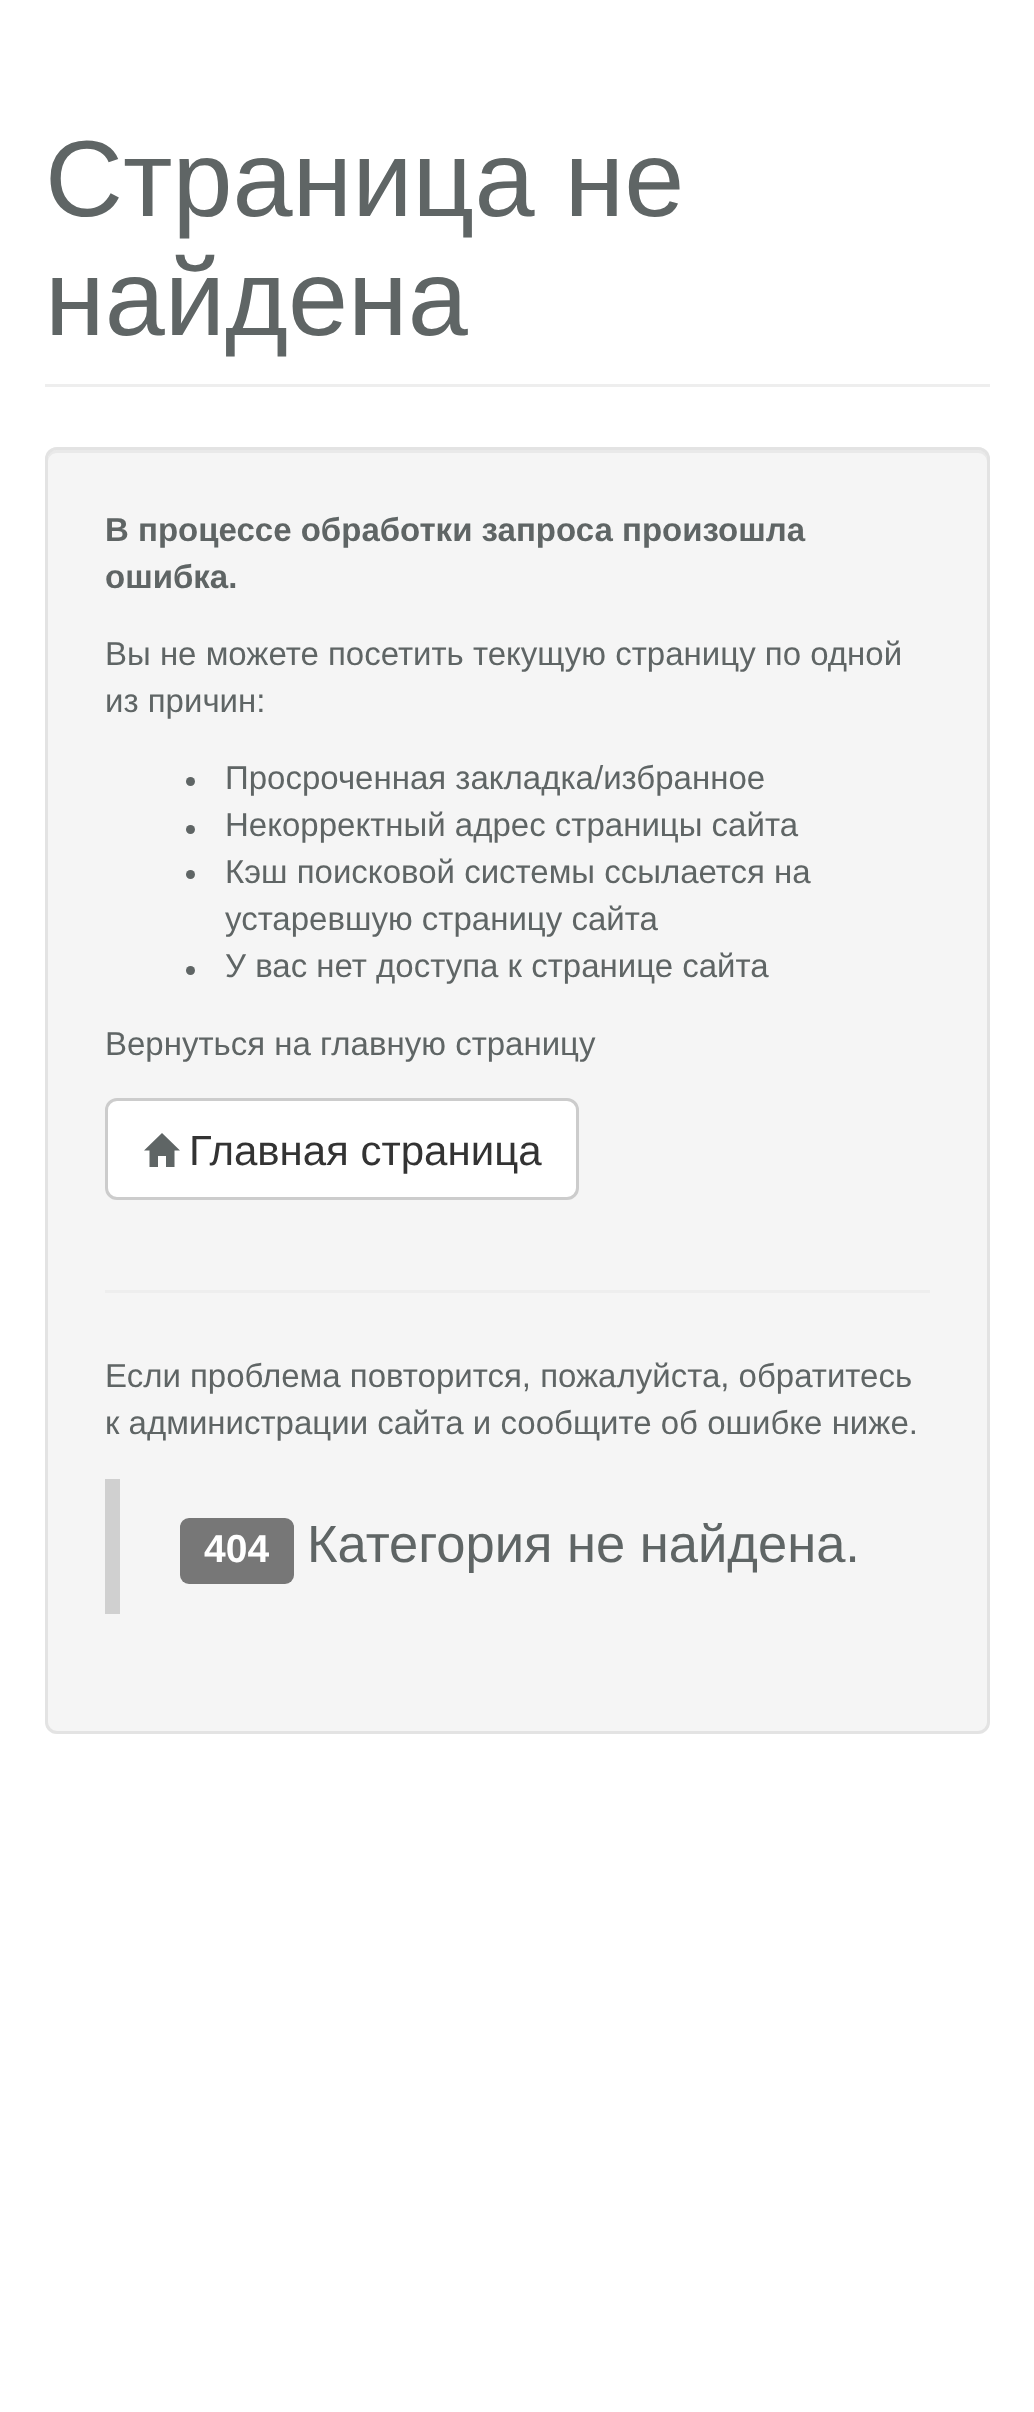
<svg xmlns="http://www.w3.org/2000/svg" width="1034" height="2412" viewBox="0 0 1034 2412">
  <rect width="100%" height="100%" fill="#ffffff"/>
  <rect x="45" y="384" width="945" height="3" fill="#eeeeee"/>
  <text x="45" y="216" font-family="Liberation Sans" font-size="108" fill="#5f6565">Страница не</text>
  <text x="45" y="335" font-family="Liberation Sans" font-size="108" fill="#5f6565">найдена</text>
  <rect x="45" y="447" width="945" height="1287" rx="12" fill="#f5f5f5"/>
  <path d="M57 453H978C983 453 987 457 987 462V459C987 454 983 450 978 450H57C52 450 48 454 48 459V462C48 457 52 453 57 453Z" fill="#e9e9e9"/>
  <rect x="46.5" y="448.5" width="942" height="1284" rx="10.5" fill="none" stroke="#e3e3e3" stroke-width="3"/>
  <text x="105" y="541" font-family="Liberation Sans" font-size="33" font-weight="bold" fill="#5f6565">В процессе обработки запроса произошла</text>
  <text x="105" y="588" font-family="Liberation Sans" font-size="33" font-weight="bold" fill="#5f6565">ошибка.</text>
  <text x="105" y="665" font-family="Liberation Sans" font-size="33" fill="#5f6565">Вы не можете посетить текущую страницу по одной</text>
  <text x="105" y="712" font-family="Liberation Sans" font-size="33" fill="#5f6565">из причин:</text>
  <circle cx="190.5" cy="781.5" r="4.5" fill="#5f6565"/>
  <text x="225" y="789" font-family="Liberation Sans" font-size="33" fill="#5f6565">Просроченная закладка/избранное</text>
  <circle cx="190.5" cy="829.5" r="4.5" fill="#5f6565"/>
  <text x="225" y="836" font-family="Liberation Sans" font-size="33" fill="#5f6565">Некорректный адрес страницы сайта</text>
  <circle cx="190.5" cy="874.5" r="4.5" fill="#5f6565"/>
  <text x="225" y="883" font-family="Liberation Sans" font-size="33" fill="#5f6565">Кэш поисковой системы ссылается на</text>
  <text x="225" y="930" font-family="Liberation Sans" font-size="33" fill="#5f6565">устаревшую страницу сайта</text>
  <circle cx="190.5" cy="970.5" r="4.5" fill="#5f6565"/>
  <text x="225" y="977" font-family="Liberation Sans" font-size="33" fill="#5f6565">У вас нет доступа к странице сайта</text>
  <text x="105" y="1055" font-family="Liberation Sans" font-size="33" fill="#5f6565">Вернуться на главную страницу</text>
  <rect x="106.5" y="1099.5" width="471" height="99" rx="10.5" fill="#ffffff" stroke="#cccccc" stroke-width="3"/>
  <path d="M144 1150.5L162 1133L180 1150.5H174.5V1167H166V1156H158V1167H149.5V1150.5Z" fill="#5f6565"/>
  <text x="189" y="1165" font-family="Liberation Sans" font-size="42" fill="#333333">Главная страница</text>
  <rect x="105" y="1290" width="825" height="3" fill="#eeeeee"/>
  <text x="105" y="1387" font-family="Liberation Sans" font-size="33" fill="#5f6565">Если проблема повторится, пожалуйста, обратитесь</text>
  <text x="105" y="1434" font-family="Liberation Sans" font-size="33" fill="#5f6565">к администрации сайта и сообщите об ошибке ниже.</text>
  <rect x="105" y="1479" width="15" height="135" fill="#d0d0d0"/>
  <rect x="180" y="1518" width="114" height="66" rx="9" fill="#777777"/>
  <text x="204" y="1562" font-family="Liberation Sans" font-size="39" font-weight="bold" fill="#ffffff">404</text>
  <text x="307" y="1562" font-family="Liberation Sans" font-size="52.5" fill="#5f6565">Категория не найдена.</text>
</svg>
